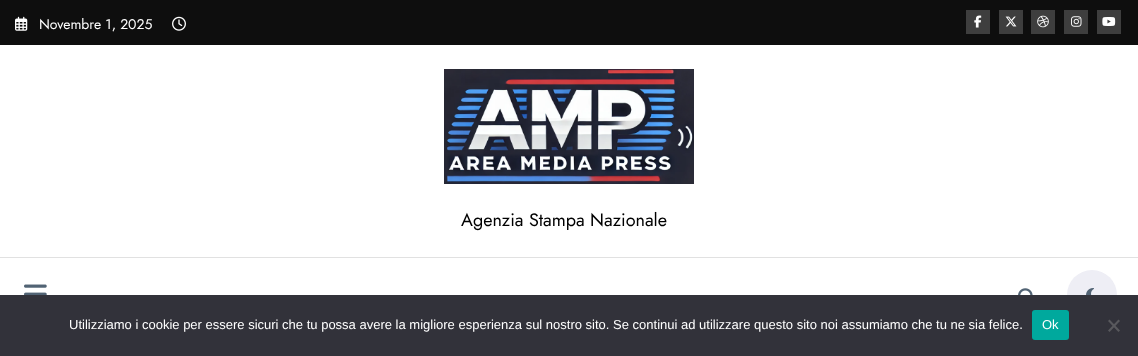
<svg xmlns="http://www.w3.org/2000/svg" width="1138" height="356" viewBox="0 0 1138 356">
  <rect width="100%" height="100%" fill="#0e0e0e"/>
  <image x="15" y="16" width="13" height="15" href="img1.png"/>
  <text x="39" y="29" font-family="Jost" font-size="14" fill="#ffffff">Novembre 1, 2025</text>
  <image x="172" y="16" width="14" height="15" href="img2.png"/>
  <rect x="966" y="10" width="24" height="24" fill="#3e3e3e"/>
  <image x="974" y="15" width="8" height="13" href="img3.png"/>
  <rect x="999" y="10" width="24" height="24" fill="#3e3e3e"/>
  <image x="1005" y="16" width="12" height="11" href="img4.png"/>
  <rect x="1031" y="10" width="24" height="24" fill="#3e3e3e"/>
  <image x="1037" y="15" width="12" height="13" href="img5.png"/>
  <rect x="1064" y="10" width="24" height="24" fill="#3e3e3e"/>
  <image x="1071" y="16" width="11" height="11" href="img6.png"/>
  <rect x="1097" y="10" width="24" height="24" fill="#3e3e3e"/>
  <image x="1102" y="17" width="14" height="9" href="img7.png"/>
  <rect x="0" y="45" width="1138" height="250" fill="#ffffff"/>
  <image x="444" y="69" width="250" height="115" href="img8.png"/>
  <text x="461" y="226" font-family="Jost" font-size="18" fill="#000000">Agenzia Stampa Nazionale</text>
  <rect x="0" y="257" width="1138" height="1" fill="#e1e1e1"/>
  <image x="24" y="284" width="23" height="11" href="img9.png"/>
  <image x="1018" y="288" width="15" height="7" href="img10.png"/>
  <circle cx="1092" cy="295" r="25" fill="#eeeef5"/>
  <image x="1086" y="288" width="8" height="7" href="img11.png"/>
  <rect x="0" y="295" width="1138" height="61" fill="#32323a"/>
  <text x="69" y="329" font-family="Liberation Sans" font-size="13" fill="#ffffff">Utilizziamo i cookie per essere sicuri che tu possa avere la migliore esperienza sul nostro sito. Se continui ad utilizzare questo sito noi assumiamo che tu ne sia felice.</text>
  <rect x="1032" y="310" width="37" height="30" rx="3" fill="#00a99d"/>
  <text x="1042" y="329" font-family="Liberation Sans" font-size="13" fill="#ffffff">Ok</text>
  <path d="M1118.5 319.5L1120 321L1109.5 332L1108 330.5Z" fill="#59595d"/>
  <path d="M1108 321L1109.5 319.5L1120 330.5L1118.5 332Z" fill="#59595d"/>
</svg>
